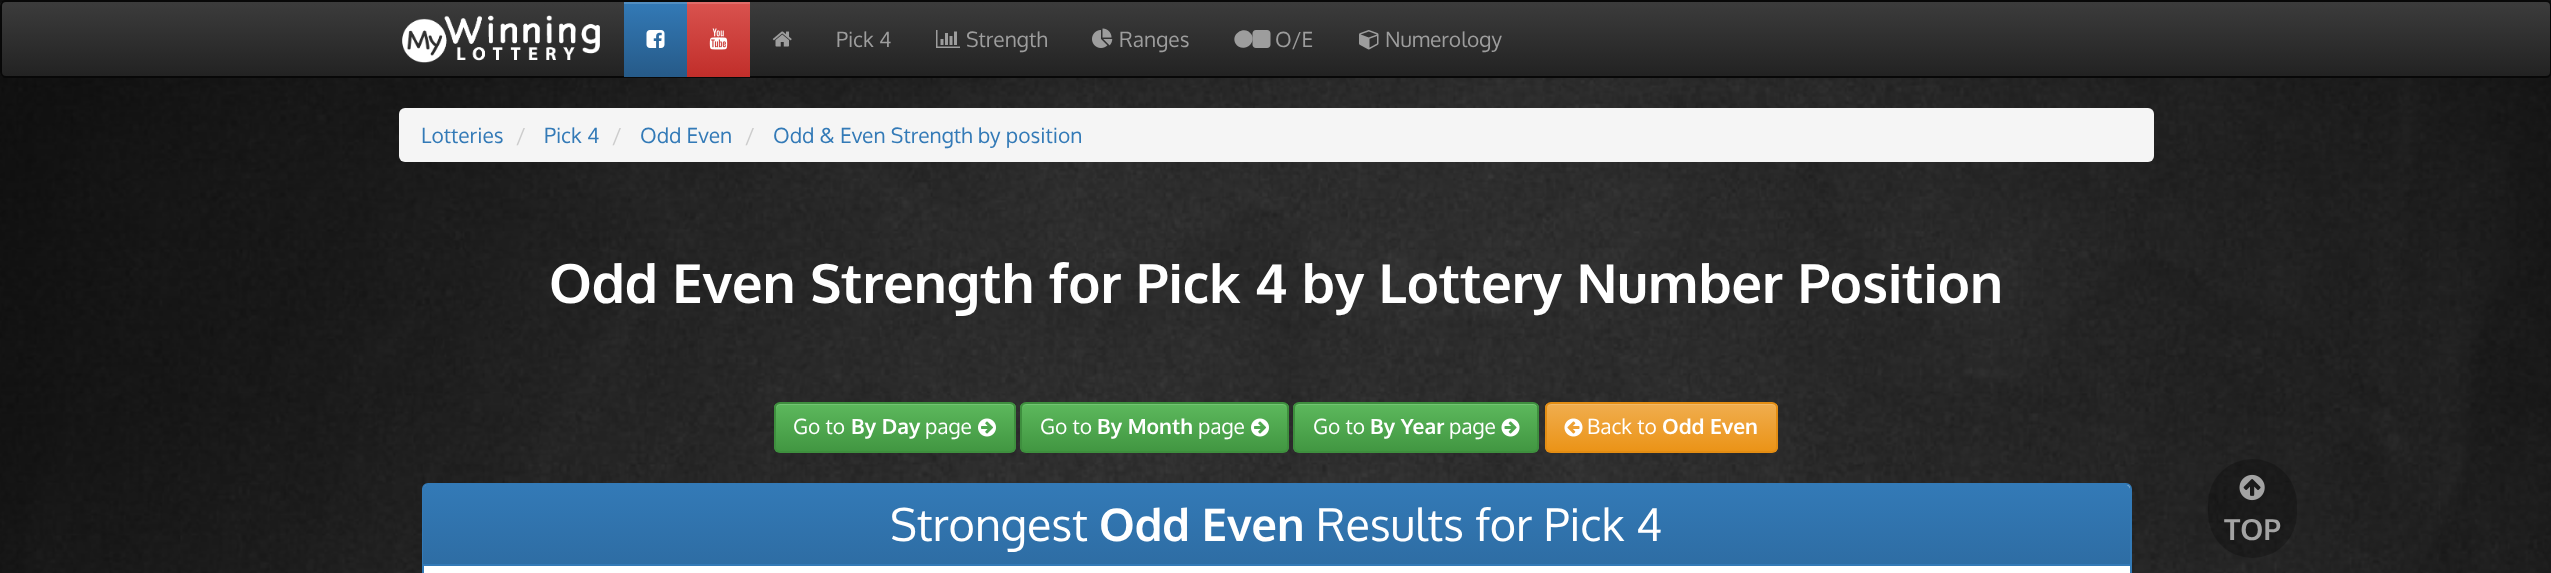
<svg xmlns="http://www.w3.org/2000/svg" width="2551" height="573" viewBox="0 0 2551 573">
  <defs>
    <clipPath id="clip1"><rect x="0" y="0" width="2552" height="78" rx="6"/></clipPath>
    <linearGradient id="g1" gradientUnits="userSpaceOnUse" x1="1276" y1="1.5" x2="1276" y2="77"><stop offset="0" stop-color="#3c3c3c"/><stop offset="1" stop-color="#222222"/></linearGradient>
    <linearGradient id="g2" gradientUnits="userSpaceOnUse" x1="656" y1="1.5" x2="656" y2="77"><stop offset="0" stop-color="#337ab7"/><stop offset="1" stop-color="#265a88"/></linearGradient>
    <linearGradient id="g3" gradientUnits="userSpaceOnUse" x1="719" y1="1.5" x2="719" y2="77"><stop offset="0" stop-color="#d9534f"/><stop offset="1" stop-color="#c12e2a"/></linearGradient>
    <clipPath id="clip2"><rect x="774" y="402" width="242" height="51" rx="6"/></clipPath>
    <linearGradient id="g4" gradientUnits="userSpaceOnUse" x1="895" y1="404" x2="895" y2="452"><stop offset="0" stop-color="#5cb85c"/><stop offset="1" stop-color="#419641"/></linearGradient>
    <clipPath id="clip3"><rect x="1020" y="402" width="269" height="51" rx="6"/></clipPath>
    <linearGradient id="g5" gradientUnits="userSpaceOnUse" x1="1154" y1="404" x2="1154" y2="452"><stop offset="0" stop-color="#5cb85c"/><stop offset="1" stop-color="#419641"/></linearGradient>
    <clipPath id="clip4"><rect x="1293" y="402" width="246" height="51" rx="6"/></clipPath>
    <linearGradient id="g6" gradientUnits="userSpaceOnUse" x1="1416" y1="404" x2="1416" y2="452"><stop offset="0" stop-color="#5cb85c"/><stop offset="1" stop-color="#419641"/></linearGradient>
    <clipPath id="clip5"><rect x="1545" y="402" width="233" height="51" rx="6"/></clipPath>
    <linearGradient id="g7" gradientUnits="userSpaceOnUse" x1="1661" y1="404" x2="1661" y2="452"><stop offset="0" stop-color="#f0ad4e"/><stop offset="1" stop-color="#eb9316"/></linearGradient>
    <linearGradient id="g8" gradientUnits="userSpaceOnUse" x1="1277" y1="484" x2="1277" y2="564"><stop offset="0" stop-color="#337ab7"/><stop offset="1" stop-color="#2e6da4"/></linearGradient>
  </defs>
  <rect width="100%" height="100%" fill="#ffffff"/>
  <image x="0" y="0" width="2551" height="573" href="img1.png"/>
  <g clip-path="url(#clip1)">
    <rect x="0" y="2" width="2551" height="75" fill="url(#g1)"/>
  </g>
  <rect x="1" y="1" width="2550" height="76" rx="5" fill="none" stroke="#080808" stroke-width="2"/>
  <image x="402" y="15" width="198" height="48" href="img2.png"/>
  <rect x="624" y="4" width="63" height="73" fill="url(#g2)"/>
  <rect x="624" y="2" width="63" height="2" fill="#528ec1"/>
  <image x="646" y="30" width="19" height="18" href="img3.png"/>
  <rect x="687" y="4" width="63" height="73" fill="url(#g3)"/>
  <rect x="687" y="2" width="63" height="2" fill="#de6c69"/>
  <image x="709" y="28" width="19" height="22" href="img4.png"/>
  <image x="772" y="31" width="20" height="16" href="img5.png"/>
  <text x="836" y="47" font-family="Oxygen" font-size="21" fill="#9d9d9d">Pick 4</text>
  <image x="936" y="30" width="24" height="18" href="img6.png"/>
  <text x="966" y="47" font-family="Oxygen" font-size="21" fill="#9d9d9d">Strength</text>
  <image x="1092" y="28" width="21" height="20" href="img7.png"/>
  <text x="1119" y="47" font-family="Oxygen" font-size="21" fill="#9d9d9d">Ranges</text>
  <path d="M1251.5 34.5C1257 44.5 1241.5 53.5 1235.5 43.5C1230 33.5 1245.5 24.5 1251.5 34.5Z" fill="#9d9d9d"/>
  <image x="1252" y="30" width="19" height="18" href="img8.png"/>
  <text x="1275" y="47" font-family="Oxygen" font-size="21" fill="#9d9d9d">O/E</text>
  <image x="1359" y="30" width="20" height="20" href="img9.png"/>
  <text x="1385" y="47" font-family="Oxygen" font-size="21" fill="#9d9d9d">Numerology</text>
  <rect x="399" y="108" width="1755" height="54" rx="6" fill="#f5f5f5"/>
  <text x="421" y="143" font-family="Oxygen" font-size="21" fill="#337ab7">Lotteries</text>
  <text x="516" y="143" font-family="Oxygen" font-size="21" fill="#cccccc">/</text>
  <text x="544" y="143" font-family="Oxygen" font-size="21" fill="#337ab7">Pick 4</text>
  <text x="612" y="143" font-family="Oxygen" font-size="21" fill="#cccccc">/</text>
  <text x="640" y="143" font-family="Oxygen" font-size="21" fill="#337ab7">Odd Even</text>
  <text x="745" y="143" font-family="Oxygen" font-size="21" fill="#cccccc">/</text>
  <text x="773" y="143" font-family="Oxygen" font-size="21" fill="#337ab7">Odd &amp; Even Strength by position</text>
  <text x="549" y="303" font-family="Oxygen" font-size="54" font-weight="bold" fill="#ffffff">Odd Even Strength for Pick 4 by Lottery Number Position</text>
  <g clip-path="url(#clip2)">
    <rect x="774" y="404" width="242" height="48" fill="url(#g4)"/>
  </g>
  <path d="M780 405H1010C1012 405 1014 407 1014 410V409C1014 406 1012 404 1009 404H781C778 404 776 406 776 409V410C776 407 778 405 780 405Z" fill="#74c374"/>
  <rect x="775" y="403" width="240" height="49" rx="5" fill="none" stroke="#3e8f3e" stroke-width="2"/>
  <text x="793" y="434" font-family="Oxygen" font-size="21" fill="#ffffff">Go to</text>
  <text x="851" y="434" font-family="Oxygen" font-size="21" font-weight="bold" fill="#ffffff">By Day</text>
  <text x="925" y="434" font-family="Oxygen" font-size="21" fill="#ffffff">page</text>
  <image x="978" y="418" width="18" height="19" href="img10.png"/>
  <g clip-path="url(#clip3)">
    <rect x="1020" y="404" width="269" height="48" fill="url(#g5)"/>
  </g>
  <path d="M1026 405H1282C1285 405 1287 407 1287 410C1287 407 1285 404 1282 404H1027C1024 404 1022 407 1022 410C1022 407 1024 405 1026 405Z" fill="#74c374"/>
  <rect x="1021" y="403" width="267" height="49" rx="5" fill="none" stroke="#3e8f3e" stroke-width="2"/>
  <text x="1040" y="434" font-family="Oxygen" font-size="21" fill="#ffffff">Go to</text>
  <text x="1097" y="434" font-family="Oxygen" font-size="21" font-weight="bold" fill="#ffffff">By Month</text>
  <text x="1198" y="434" font-family="Oxygen" font-size="21" fill="#ffffff">page</text>
  <image x="1251" y="418" width="18" height="19" href="img10.png"/>
  <g clip-path="url(#clip4)">
    <rect x="1293" y="404" width="246" height="48" fill="url(#g6)"/>
  </g>
  <path d="M1299 405H1533C1535 405 1538 407 1538 410V409C1538 406 1536 404 1533 404H1300C1298 404 1297 405 1296 406Z" fill="#74c374"/>
  <rect x="1294" y="403" width="244" height="49" rx="5" fill="none" stroke="#3e8f3e" stroke-width="2"/>
  <text x="1313" y="434" font-family="Oxygen" font-size="21" fill="#ffffff">Go to</text>
  <text x="1370" y="434" font-family="Oxygen" font-size="21" font-weight="bold" fill="#ffffff">By Year</text>
  <text x="1449" y="434" font-family="Oxygen" font-size="21" fill="#ffffff">page</text>
  <image x="1501" y="418" width="19" height="19" href="img11.png"/>
  <g clip-path="url(#clip5)">
    <rect x="1545" y="404" width="233" height="48" fill="url(#g7)"/>
  </g>
  <path d="M1551 405H1772C1774 405 1776 407 1776 410V409C1776 406 1774 404 1771 404H1552C1550 404 1549 405 1548 406Z" fill="#f2b968"/>
  <rect x="1546" y="403" width="231" height="49" rx="5" fill="none" stroke="#e38d13" stroke-width="2"/>
  <image x="1564" y="418" width="19" height="19" href="img12.png"/>
  <text x="1587" y="434" font-family="Oxygen" font-size="21" fill="#ffffff">Back to</text>
  <text x="1662" y="434" font-family="Oxygen" font-size="21" font-weight="bold" fill="#ffffff">Odd Even</text>
  <rect x="423" y="484" width="1708" height="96" rx="5" fill="#ffffff" stroke="#337ab7" stroke-width="2"/>
  <path d="M428 485H2125C2128 485 2130 487 2130 490V566H423V490C423 487 425 485 428 485Z" fill="#337ab7"/>
  <path d="M428 485H2125C2128 485 2130 487 2130 490V564H423V490C423 487 425 485 428 485Z" fill="url(#g8)"/>
  <text x="890" y="541" font-family="Oxygen" font-size="45" fill="#ffffff">Strongest</text>
  <text x="1099" y="541" font-family="Oxygen" font-size="45" font-weight="bold" fill="#ffffff">Odd Even</text>
  <text x="1316" y="541" font-family="Oxygen" font-size="45" fill="#ffffff">Results for Pick 4</text>
  <rect x="2208" y="459" width="89" height="99" rx="44.5" fill="#000000" fill-opacity="0.24"/>
  <image x="2239" y="474" width="26" height="27" href="img13.png"/>
  <text x="2224" y="540" font-family="Oxygen" font-size="29" font-weight="bold" fill="#a4a4a4">TOP</text>
</svg>
